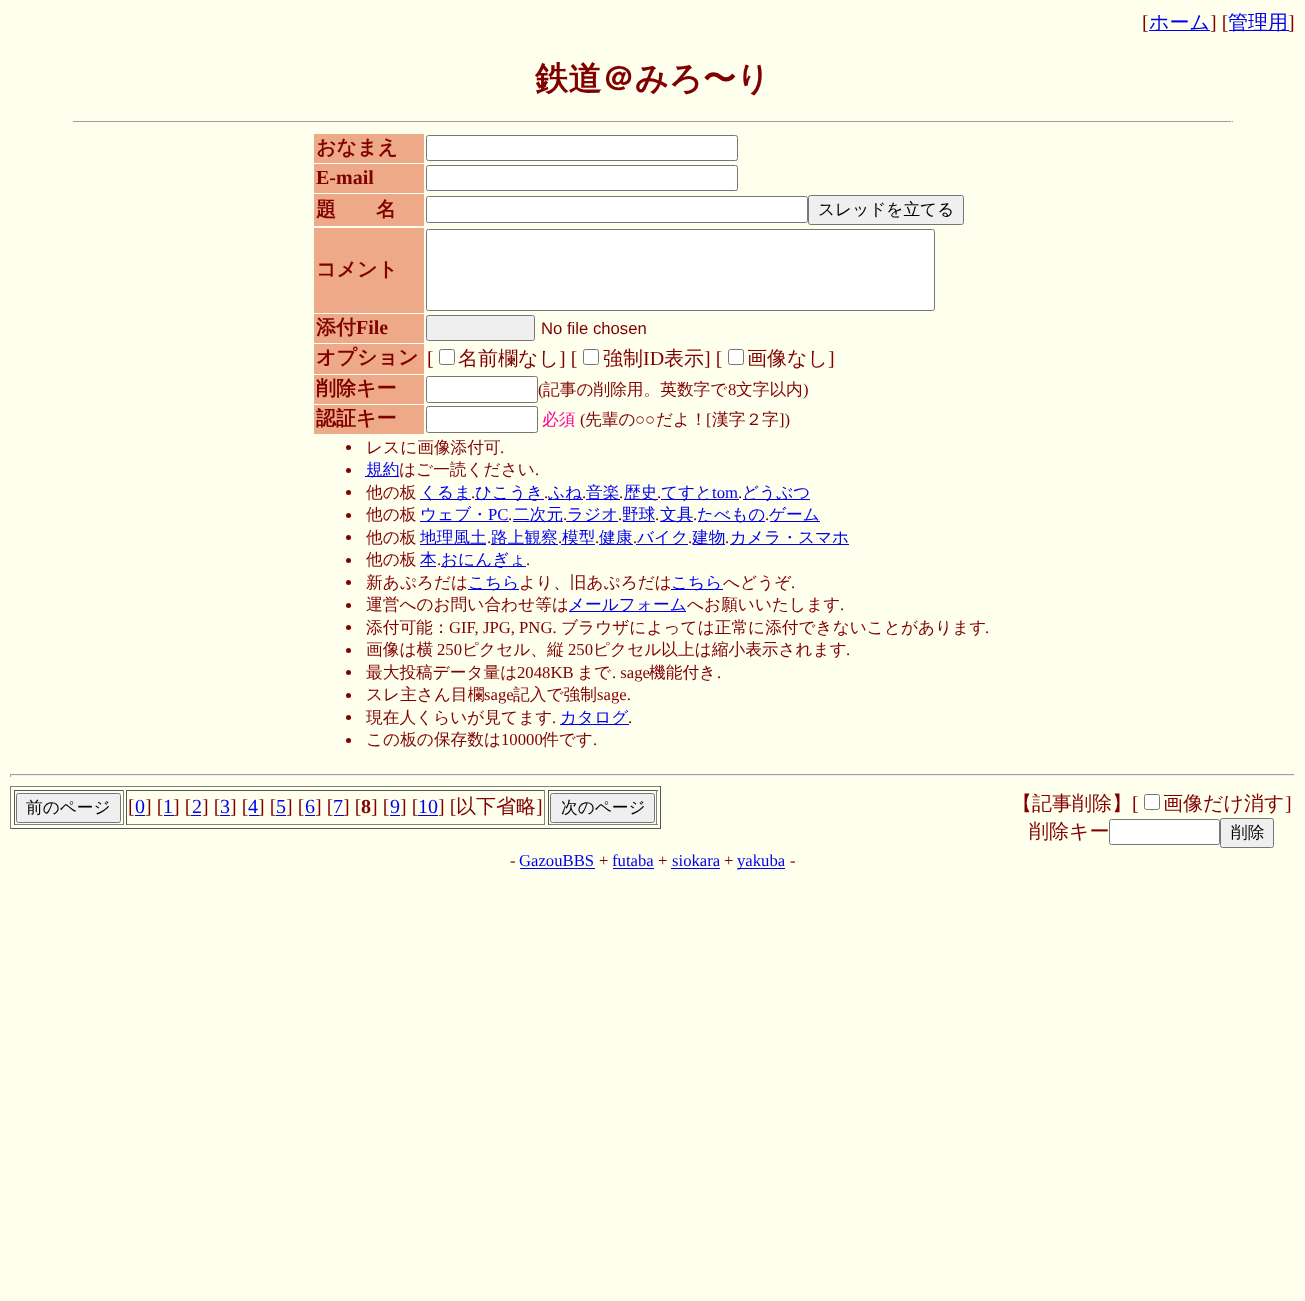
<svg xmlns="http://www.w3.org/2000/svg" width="1305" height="1301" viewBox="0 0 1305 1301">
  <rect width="100%" height="100%" fill="#ffffee"/>
  <text x="1142" y="29" font-family="Liberation Serif" font-size="20" fill="#800000">[</text>
  <rect x="1149" y="30" width="61" height="1" fill="#0000ee"/>
  <text x="1149" y="29" font-family="WenQuanYi Zen Hei" font-size="20" font-weight="500" fill="#0000ee">ホーム</text>
  <text x="1210" y="29" font-family="Liberation Serif" font-size="20" fill="#800000">] [</text>
  <rect x="1229" y="30" width="60" height="1" fill="#0000ee"/>
  <text x="1228" y="29" font-family="WenQuanYi Zen Hei" font-size="20" font-weight="500" fill="#0000ee">管理用</text>
  <text x="1288" y="29" font-family="Liberation Serif" font-size="20" fill="#800000">]</text>
  <text x="535" y="90" font-family="WenQuanYi Zen Hei" font-size="33.25" font-weight="bold" fill="#800000">鉄道＠みろ〜り</text>
  <rect x="73" y="121" width="1160" height="1" fill="#9f9f9f"/>
  <rect x="1231" y="121" width="1" height="1" fill="#eeeeee"/>
  <rect x="314" y="134" width="110" height="29" fill="#eeaa88"/>
  <text x="316" y="154" font-family="WenQuanYi Zen Hei" font-size="20" font-weight="bold" fill="#800000">おなまえ</text>
  <rect x="426.5" y="135.5" width="311" height="25" rx="2" fill="#ffffff" stroke="#767676"/>
  <rect x="314" y="164" width="110" height="29" fill="#eeaa88"/>
  <text x="316" y="184" font-family="Liberation Serif" font-size="20" font-weight="bold" fill="#800000">E-mail</text>
  <rect x="426.5" y="165.5" width="311" height="25" rx="2" fill="#ffffff" stroke="#767676"/>
  <rect x="314" y="194" width="110" height="32" fill="#eeaa88"/>
  <text x="316" y="216" font-family="WenQuanYi Zen Hei" font-size="20" font-weight="bold" fill="#800000">題　　名</text>
  <rect x="426.5" y="196.5" width="381" height="26" rx="2" fill="#ffffff" stroke="#767676"/>
  <rect x="808.5" y="195.5" width="155" height="29" rx="2" fill="#efefef" stroke="#767676"/>
  <text x="818" y="215" font-family="WenQuanYi Zen Hei" font-size="16.7" font-weight="500" fill="#000000">スレッドを立てる</text>
  <rect x="314" y="228" width="110" height="85" fill="#eeaa88"/>
  <text x="316" y="276" font-family="WenQuanYi Zen Hei" font-size="20" font-weight="bold" fill="#800000">コメント</text>
  <rect x="426.5" y="229.5" width="508" height="81" rx="2" fill="#ffffff" stroke="#767676"/>
  <rect x="314" y="314" width="110" height="29" fill="#eeaa88"/>
  <text x="316" y="334" font-family="WenQuanYi Zen Hei" font-size="20" font-weight="bold" fill="#800000">添付</text>
  <text x="356" y="334" font-family="Liberation Serif" font-size="20" font-weight="bold" fill="#800000">File</text>
  <rect x="426.5" y="315.5" width="108" height="25" rx="2" fill="#efefef" stroke="#767676"/>
  <text x="541" y="334" font-family="Liberation Sans" font-size="16.7" fill="#800000">No file chosen</text>
  <rect x="314" y="344" width="110" height="30" fill="#eeaa88"/>
  <text x="316" y="364" font-family="WenQuanYi Zen Hei" font-size="20" font-weight="bold" fill="#800000">オプション</text>
  <text x="427" y="365" font-family="Liberation Serif" font-size="20" fill="#800000">[</text>
  <rect x="439.5" y="349.5" width="15" height="15" rx="2" fill="#ffffff" stroke="#767676"/>
  <text x="458" y="365" font-family="WenQuanYi Zen Hei" font-size="20" font-weight="500" fill="#800000">名前欄なし</text>
  <text x="559" y="365" font-family="Liberation Serif" font-size="20" fill="#800000">] [</text>
  <rect x="583.5" y="349.5" width="15" height="15" rx="2" fill="#ffffff" stroke="#767676"/>
  <text x="603" y="365" font-family="WenQuanYi Zen Hei" font-size="20" font-weight="500" fill="#800000">強制</text>
  <text x="643" y="365" font-family="Liberation Serif" font-size="20" fill="#800000">ID</text>
  <text x="664" y="365" font-family="WenQuanYi Zen Hei" font-size="20" font-weight="500" fill="#800000">表示</text>
  <text x="704" y="365" font-family="Liberation Serif" font-size="20" fill="#800000">] [</text>
  <rect x="728.5" y="349.5" width="15" height="15" rx="2" fill="#ffffff" stroke="#767676"/>
  <text x="747" y="365" font-family="WenQuanYi Zen Hei" font-size="20" font-weight="500" fill="#800000">画像なし</text>
  <text x="828" y="365" font-family="Liberation Serif" font-size="20" fill="#800000">]</text>
  <rect x="314" y="375" width="110" height="29" fill="#eeaa88"/>
  <text x="316" y="395" font-family="WenQuanYi Zen Hei" font-size="20" font-weight="bold" fill="#800000">削除キー</text>
  <rect x="426.5" y="376.5" width="111" height="26" rx="2" fill="#ffffff" stroke="#767676"/>
  <text x="538" y="395" font-family="Liberation Serif" font-size="16.7" fill="#800000">(</text>
  <text x="543" y="395" font-family="WenQuanYi Zen Hei" font-size="16.7" font-weight="500" fill="#800000">記事の削除用。英数字で</text>
  <text x="728" y="395" font-family="Liberation Serif" font-size="16.7" fill="#800000">8</text>
  <text x="736" y="395" font-family="WenQuanYi Zen Hei" font-size="16.7" font-weight="500" fill="#800000">文字以内</text>
  <text x="803" y="395" font-family="Liberation Serif" font-size="16.7" fill="#800000">)</text>
  <rect x="314" y="405" width="110" height="29" fill="#eeaa88"/>
  <text x="316" y="425" font-family="WenQuanYi Zen Hei" font-size="20" font-weight="bold" fill="#800000">認証キー</text>
  <rect x="426.5" y="406.5" width="111" height="26" rx="2" fill="#ffffff" stroke="#767676"/>
  <text x="542" y="425" font-family="WenQuanYi Zen Hei" font-size="16.7" font-weight="500" fill="#ff0099">必須</text>
  <text x="580" y="425" font-family="Liberation Serif" font-size="16.7" fill="#800000">(</text>
  <text x="585" y="425" font-family="WenQuanYi Zen Hei" font-size="16.7" font-weight="500" fill="#800000">先輩の</text>
  <text x="635" y="425" font-family="Liberation Serif" font-size="16.7" fill="#800000">○○</text>
  <text x="656" y="425" font-family="WenQuanYi Zen Hei" font-size="16.7" font-weight="500" fill="#800000">だよ！</text>
  <text x="706" y="425" font-family="Liberation Serif" font-size="16.7" fill="#800000">[</text>
  <text x="712" y="425" font-family="WenQuanYi Zen Hei" font-size="16.7" font-weight="500" fill="#800000">漢字２字</text>
  <text x="779" y="425" font-family="Liberation Serif" font-size="16.7" fill="#800000">])</text>
  <circle cx="348.5" cy="447.5" r="2.5" fill="#800000"/>
  <text x="366" y="453" font-family="WenQuanYi Zen Hei" font-size="16.7" font-weight="500" fill="#800000">レスに画像添付可</text>
  <text x="500" y="453" font-family="Liberation Serif" font-size="16.7" fill="#800000">.</text>
  <circle cx="348.5" cy="470.5" r="2.5" fill="#800000"/>
  <rect x="365" y="476" width="34" height="1" fill="#0000ee"/>
  <text x="366" y="475" font-family="WenQuanYi Zen Hei" font-size="16.7" font-weight="500" fill="#0000ee">規約</text>
  <text x="399" y="475" font-family="WenQuanYi Zen Hei" font-size="16.7" font-weight="500" fill="#800000">はご一読ください</text>
  <text x="535" y="475" font-family="Liberation Serif" font-size="16.7" fill="#800000">.</text>
  <circle cx="348.5" cy="492.5" r="2.5" fill="#800000"/>
  <text x="366" y="498" font-family="WenQuanYi Zen Hei" font-size="16.7" font-weight="500" fill="#800000">他の板</text>
  <rect x="420" y="499" width="51" height="1" fill="#0000ee"/>
  <text x="420" y="498" font-family="WenQuanYi Zen Hei" font-size="16.7" font-weight="500" fill="#0000ee">くるま</text>
  <rect x="475" y="499" width="69" height="1" fill="#0000ee"/>
  <text x="475" y="498" font-family="WenQuanYi Zen Hei" font-size="16.7" font-weight="500" fill="#0000ee">ひこうき</text>
  <rect x="548" y="499" width="35" height="1" fill="#0000ee"/>
  <text x="548" y="498" font-family="WenQuanYi Zen Hei" font-size="16.7" font-weight="500" fill="#0000ee">ふね</text>
  <rect x="586" y="499" width="34" height="1" fill="#0000ee"/>
  <text x="586" y="498" font-family="WenQuanYi Zen Hei" font-size="16.7" font-weight="500" fill="#0000ee">音楽</text>
  <rect x="624" y="499" width="34" height="1" fill="#0000ee"/>
  <text x="624" y="498" font-family="WenQuanYi Zen Hei" font-size="16.7" font-weight="500" fill="#0000ee">歴史</text>
  <rect x="661" y="499" width="78" height="1" fill="#0000ee"/>
  <text x="661" y="498" font-family="WenQuanYi Zen Hei" font-size="16.7" font-weight="500" fill="#0000ee">てすと</text>
  <text x="712" y="498" font-family="Liberation Serif" font-size="16.7" fill="#0000ee">tom</text>
  <rect x="743" y="499" width="67" height="1" fill="#0000ee"/>
  <text x="742" y="498" font-family="WenQuanYi Zen Hei" font-size="16.7" font-weight="500" fill="#0000ee">どうぶつ</text>
  <text x="471" y="498" font-family="Liberation Serif" font-size="16.7" fill="#800000">.</text>
  <text x="544" y="498" font-family="Liberation Serif" font-size="16.7" fill="#800000">.</text>
  <text x="582" y="498" font-family="Liberation Serif" font-size="16.7" fill="#800000">.</text>
  <text x="619" y="498" font-family="Liberation Serif" font-size="16.7" fill="#800000">.</text>
  <text x="657" y="498" font-family="Liberation Serif" font-size="16.7" fill="#800000">.</text>
  <text x="738" y="498" font-family="Liberation Serif" font-size="16.7" fill="#800000">.</text>
  <circle cx="348.5" cy="515.5" r="2.5" fill="#800000"/>
  <text x="366" y="520" font-family="WenQuanYi Zen Hei" font-size="16.7" font-weight="500" fill="#800000">他の板</text>
  <rect x="420" y="521" width="89" height="1" fill="#0000ee"/>
  <text x="420" y="520" font-family="WenQuanYi Zen Hei" font-size="16.7" font-weight="500" fill="#0000ee">ウェブ・</text>
  <text x="488" y="520" font-family="Liberation Serif" font-size="16.7" fill="#0000ee">PC</text>
  <rect x="513" y="521" width="50" height="1" fill="#0000ee"/>
  <text x="513" y="520" font-family="WenQuanYi Zen Hei" font-size="16.7" font-weight="500" fill="#0000ee">二次元</text>
  <rect x="566" y="521" width="52" height="1" fill="#0000ee"/>
  <text x="567" y="520" font-family="WenQuanYi Zen Hei" font-size="16.7" font-weight="500" fill="#0000ee">ラジオ</text>
  <rect x="623" y="521" width="32" height="1" fill="#0000ee"/>
  <text x="622" y="520" font-family="WenQuanYi Zen Hei" font-size="16.7" font-weight="500" fill="#0000ee">野球</text>
  <rect x="660" y="521" width="33" height="1" fill="#0000ee"/>
  <text x="660" y="520" font-family="WenQuanYi Zen Hei" font-size="16.7" font-weight="500" fill="#0000ee">文具</text>
  <rect x="698" y="521" width="67" height="1" fill="#0000ee"/>
  <text x="697" y="520" font-family="WenQuanYi Zen Hei" font-size="16.7" font-weight="500" fill="#0000ee">たべもの</text>
  <rect x="770" y="521" width="50" height="1" fill="#0000ee"/>
  <text x="769" y="520" font-family="WenQuanYi Zen Hei" font-size="16.7" font-weight="500" fill="#0000ee">ゲーム</text>
  <text x="508" y="520" font-family="Liberation Serif" font-size="16.7" fill="#800000">.</text>
  <text x="563" y="520" font-family="Liberation Serif" font-size="16.7" fill="#800000">.</text>
  <text x="618" y="520" font-family="Liberation Serif" font-size="16.7" fill="#800000">.</text>
  <text x="655" y="520" font-family="Liberation Serif" font-size="16.7" fill="#800000">.</text>
  <text x="693" y="520" font-family="Liberation Serif" font-size="16.7" fill="#800000">.</text>
  <text x="765" y="520" font-family="Liberation Serif" font-size="16.7" fill="#800000">.</text>
  <circle cx="348.5" cy="537.5" r="2.5" fill="#800000"/>
  <text x="366" y="543" font-family="WenQuanYi Zen Hei" font-size="16.7" font-weight="500" fill="#800000">他の板</text>
  <rect x="420" y="544" width="66" height="1" fill="#0000ee"/>
  <text x="420" y="543" font-family="WenQuanYi Zen Hei" font-size="16.7" font-weight="500" fill="#0000ee">地理風土</text>
  <rect x="491" y="544" width="67" height="1" fill="#0000ee"/>
  <text x="491" y="543" font-family="WenQuanYi Zen Hei" font-size="16.7" font-weight="500" fill="#0000ee">路上観察</text>
  <rect x="561" y="544" width="34" height="1" fill="#0000ee"/>
  <text x="562" y="543" font-family="WenQuanYi Zen Hei" font-size="16.7" font-weight="500" fill="#0000ee">模型</text>
  <rect x="599" y="544" width="34" height="1" fill="#0000ee"/>
  <text x="599" y="543" font-family="WenQuanYi Zen Hei" font-size="16.7" font-weight="500" fill="#0000ee">健康</text>
  <rect x="636" y="544" width="52" height="1" fill="#0000ee"/>
  <text x="637" y="543" font-family="WenQuanYi Zen Hei" font-size="16.7" font-weight="500" fill="#0000ee">バイク</text>
  <rect x="693" y="544" width="32" height="1" fill="#0000ee"/>
  <text x="688" y="543" font-family="Liberation Serif" font-size="16.7" fill="#800000">.</text>
  <text x="692" y="543" font-family="WenQuanYi Zen Hei" font-size="16.7" font-weight="500" fill="#0000ee">建物</text>
  <rect x="730" y="544" width="119" height="1" fill="#0000ee"/>
  <text x="730" y="543" font-family="WenQuanYi Zen Hei" font-size="16.7" font-weight="500" fill="#0000ee">カメラ・スマホ</text>
  <text x="487" y="543" font-family="Liberation Serif" font-size="16.7" fill="#800000">.</text>
  <text x="558" y="543" font-family="Liberation Serif" font-size="16.7" fill="#800000">.</text>
  <text x="595" y="543" font-family="Liberation Serif" font-size="16.7" fill="#800000">.</text>
  <text x="633" y="543" font-family="Liberation Serif" font-size="16.7" fill="#800000">.</text>
  <text x="725" y="543" font-family="Liberation Serif" font-size="16.7" fill="#800000">.</text>
  <circle cx="348.5" cy="560.5" r="2.5" fill="#800000"/>
  <text x="366" y="565" font-family="WenQuanYi Zen Hei" font-size="16.7" font-weight="500" fill="#800000">他の板</text>
  <rect x="420" y="566" width="16" height="1" fill="#0000ee"/>
  <text x="420" y="565" font-family="WenQuanYi Zen Hei" font-size="16.7" font-weight="500" fill="#0000ee">本</text>
  <rect x="441" y="566" width="85" height="1" fill="#0000ee"/>
  <text x="441" y="565" font-family="WenQuanYi Zen Hei" font-size="16.7" font-weight="500" fill="#0000ee">おにんぎょ</text>
  <text x="437" y="565" font-family="Liberation Serif" font-size="16.7" fill="#800000">.</text>
  <text x="526" y="565" font-family="Liberation Serif" font-size="16.7" fill="#800000">.</text>
  <circle cx="348.5" cy="582.5" r="2.5" fill="#800000"/>
  <text x="366" y="588" font-family="WenQuanYi Zen Hei" font-size="16.7" font-weight="500" fill="#800000">新あぷろだは</text>
  <rect x="468" y="589" width="51" height="1" fill="#0000ee"/>
  <text x="468" y="588" font-family="WenQuanYi Zen Hei" font-size="16.7" font-weight="500" fill="#0000ee">こちら</text>
  <text x="519" y="588" font-family="WenQuanYi Zen Hei" font-size="16.7" font-weight="500" fill="#800000">より、旧あぷろだは</text>
  <rect x="671" y="589" width="52" height="1" fill="#0000ee"/>
  <text x="671" y="588" font-family="WenQuanYi Zen Hei" font-size="16.7" font-weight="500" fill="#0000ee">こちら</text>
  <text x="723" y="588" font-family="WenQuanYi Zen Hei" font-size="16.7" font-weight="500" fill="#800000">へどうぞ</text>
  <text x="791" y="588" font-family="Liberation Serif" font-size="16.7" fill="#800000">.</text>
  <circle cx="348.5" cy="605.5" r="2.5" fill="#800000"/>
  <text x="366" y="610" font-family="WenQuanYi Zen Hei" font-size="16.7" font-weight="500" fill="#800000">運営へのお問い合わせ等は</text>
  <rect x="569" y="611" width="117" height="1" fill="#0000ee"/>
  <text x="568" y="610" font-family="WenQuanYi Zen Hei" font-size="16.7" font-weight="500" fill="#0000ee">メールフォーム</text>
  <text x="687" y="610" font-family="WenQuanYi Zen Hei" font-size="16.7" font-weight="500" fill="#800000">へお願いいたします</text>
  <text x="840" y="610" font-family="Liberation Serif" font-size="16.7" fill="#800000">.</text>
  <circle cx="348.5" cy="627.5" r="2.5" fill="#800000"/>
  <text x="366" y="633" font-family="WenQuanYi Zen Hei" font-size="16.7" font-weight="500" fill="#800000">添付可能：</text>
  <text x="449" y="633" font-family="Liberation Serif" font-size="16.7" fill="#800000">GIF, JPG, PNG.</text>
  <text x="561" y="633" font-family="WenQuanYi Zen Hei" font-size="16.7" font-weight="500" fill="#800000">ブラウザによっては正常に添付できないことがあります</text>
  <text x="985" y="633" font-family="Liberation Serif" font-size="16.7" fill="#800000">.</text>
  <circle cx="348.5" cy="650.5" r="2.5" fill="#800000"/>
  <text x="366" y="655" font-family="WenQuanYi Zen Hei" font-size="16.7" font-weight="500" fill="#800000">画像は横</text>
  <text x="437" y="655" font-family="Liberation Serif" font-size="16.7" fill="#800000">250</text>
  <text x="462" y="655" font-family="WenQuanYi Zen Hei" font-size="16.7" font-weight="500" fill="#800000">ピクセル、縦</text>
  <text x="568" y="655" font-family="Liberation Serif" font-size="16.7" fill="#800000">250</text>
  <text x="593" y="655" font-family="WenQuanYi Zen Hei" font-size="16.7" font-weight="500" fill="#800000">ピクセル以上は縮小表示されます</text>
  <text x="846" y="655" font-family="Liberation Serif" font-size="16.7" fill="#800000">.</text>
  <circle cx="348.5" cy="672.5" r="2.5" fill="#800000"/>
  <text x="366" y="678" font-family="WenQuanYi Zen Hei" font-size="16.7" font-weight="500" fill="#800000">最大投稿データ量は</text>
  <text x="517" y="678" font-family="Liberation Serif" font-size="16.7" fill="#800000">2048KB</text>
  <text x="577" y="678" font-family="WenQuanYi Zen Hei" font-size="16.7" font-weight="500" fill="#800000">まで</text>
  <text x="612" y="678" font-family="Liberation Serif" font-size="16.7" fill="#800000">. sage</text>
  <text x="649" y="678" font-family="WenQuanYi Zen Hei" font-size="16.7" font-weight="500" fill="#800000">機能付き</text>
  <text x="717" y="678" font-family="Liberation Serif" font-size="16.7" fill="#800000">.</text>
  <circle cx="348.5" cy="695.5" r="2.5" fill="#800000"/>
  <text x="366" y="700" font-family="WenQuanYi Zen Hei" font-size="16.7" font-weight="500" fill="#800000">スレ主さん目欄</text>
  <text x="484" y="700" font-family="Liberation Serif" font-size="16.7" fill="#800000">sage</text>
  <text x="513" y="700" font-family="WenQuanYi Zen Hei" font-size="16.7" font-weight="500" fill="#800000">記入で強制</text>
  <text x="597" y="700" font-family="Liberation Serif" font-size="16.7" fill="#800000">sage.</text>
  <circle cx="348.5" cy="717.5" r="2.5" fill="#800000"/>
  <text x="366" y="723" font-family="WenQuanYi Zen Hei" font-size="16.7" font-weight="500" fill="#800000">現在人くらいが見てます</text>
  <rect x="560" y="724" width="69" height="1" fill="#0000ee"/>
  <text x="560" y="723" font-family="WenQuanYi Zen Hei" font-size="16.7" font-weight="500" fill="#0000ee">カタログ</text>
  <text x="552" y="723" font-family="Liberation Serif" font-size="16.7" fill="#800000">.</text>
  <text x="628" y="723" font-family="Liberation Serif" font-size="16.7" fill="#800000">.</text>
  <circle cx="348.5" cy="740.5" r="2.5" fill="#800000"/>
  <text x="366" y="745" font-family="WenQuanYi Zen Hei" font-size="16.7" font-weight="500" fill="#800000">この板の保存数は</text>
  <text x="501" y="745" font-family="Liberation Serif" font-size="16.7" fill="#800000">10000</text>
  <text x="542" y="745" font-family="WenQuanYi Zen Hei" font-size="16.7" font-weight="500" fill="#800000">件です</text>
  <text x="593" y="745" font-family="Liberation Serif" font-size="16.7" fill="#800000">.</text>
  <rect x="10" y="774" width="1285" height="1" fill="#9f9f9f"/>
  <rect x="1294" y="774" width="1" height="3" fill="#eeeeee"/>
  <rect x="10" y="775" width="1285" height="1" fill="#eeeeee"/>
  <rect x="10" y="774" width="1" height="3" fill="#9f9f9f"/>
  <rect x="10" y="786" width="651" height="1" fill="#808080"/>
  <rect x="660" y="786" width="1" height="43" fill="#555555"/>
  <rect x="10" y="828" width="651" height="1" fill="#555555"/>
  <rect x="10" y="786" width="1" height="43" fill="#808080"/>
  <rect x="14" y="790" width="110" height="1" fill="#555555"/>
  <rect x="123" y="790" width="1" height="35" fill="#808080"/>
  <rect x="14" y="824" width="110" height="1" fill="#808080"/>
  <rect x="14" y="790" width="1" height="35" fill="#555555"/>
  <rect x="16.5" y="793.5" width="104" height="29" rx="2" fill="#efefef" stroke="#767676"/>
  <text x="26" y="813" font-family="WenQuanYi Zen Hei" font-size="16.7" font-weight="500" fill="#000000">前のページ</text>
  <rect x="126" y="790" width="419" height="1" fill="#555555"/>
  <rect x="544" y="790" width="1" height="35" fill="#808080"/>
  <rect x="126" y="824" width="419" height="1" fill="#808080"/>
  <rect x="126" y="790" width="1" height="35" fill="#555555"/>
  <text x="128" y="813" font-family="Liberation Serif" font-size="20" fill="#800000">[</text>
  <text x="135" y="813" font-family="Liberation Serif" font-size="20" fill="#0000ee">0</text>
  <rect x="135" y="815" width="10" height="1" fill="#0000ee"/>
  <text x="145" y="813" font-family="Liberation Serif" font-size="20" fill="#800000">] [</text>
  <text x="163" y="813" font-family="Liberation Serif" font-size="20" fill="#0000ee">1</text>
  <rect x="164" y="815" width="10" height="1" fill="#0000ee"/>
  <text x="173" y="813" font-family="Liberation Serif" font-size="20" fill="#800000">] [</text>
  <text x="192" y="813" font-family="Liberation Serif" font-size="20" fill="#0000ee">2</text>
  <rect x="191" y="815" width="10" height="1" fill="#0000ee"/>
  <text x="202" y="813" font-family="Liberation Serif" font-size="20" fill="#800000">] [</text>
  <text x="220" y="813" font-family="Liberation Serif" font-size="20" fill="#0000ee">3</text>
  <rect x="220" y="815" width="10" height="1" fill="#0000ee"/>
  <text x="230" y="813" font-family="Liberation Serif" font-size="20" fill="#800000">] [</text>
  <text x="248" y="813" font-family="Liberation Serif" font-size="20" fill="#0000ee">4</text>
  <rect x="249" y="815" width="10" height="1" fill="#0000ee"/>
  <text x="258" y="813" font-family="Liberation Serif" font-size="20" fill="#800000">] [</text>
  <text x="276" y="813" font-family="Liberation Serif" font-size="20" fill="#0000ee">5</text>
  <rect x="276" y="815" width="10" height="1" fill="#0000ee"/>
  <text x="286" y="813" font-family="Liberation Serif" font-size="20" fill="#800000">] [</text>
  <text x="305" y="813" font-family="Liberation Serif" font-size="20" fill="#0000ee">6</text>
  <rect x="305" y="815" width="10" height="1" fill="#0000ee"/>
  <text x="315" y="813" font-family="Liberation Serif" font-size="20" fill="#800000">] [</text>
  <text x="333" y="813" font-family="Liberation Serif" font-size="20" fill="#0000ee">7</text>
  <rect x="334" y="815" width="10" height="1" fill="#0000ee"/>
  <text x="343" y="813" font-family="Liberation Serif" font-size="20" fill="#800000">] [</text>
  <text x="361" y="813" font-family="Liberation Serif" font-size="20" font-weight="bold" fill="#800000">8</text>
  <text x="371" y="813" font-family="Liberation Serif" font-size="20" fill="#800000">] [</text>
  <text x="390" y="813" font-family="Liberation Serif" font-size="20" fill="#0000ee">9</text>
  <rect x="390" y="815" width="10" height="1" fill="#0000ee"/>
  <text x="400" y="813" font-family="Liberation Serif" font-size="20" fill="#800000">] [</text>
  <text x="418" y="813" font-family="Liberation Serif" font-size="20" fill="#0000ee">10</text>
  <rect x="418" y="815" width="20" height="1" fill="#0000ee"/>
  <text x="438" y="813" font-family="Liberation Serif" font-size="20" fill="#800000">] [</text>
  <text x="456" y="813" font-family="WenQuanYi Zen Hei" font-size="20" font-weight="500" fill="#800000">以下省略</text>
  <text x="536" y="813" font-family="Liberation Serif" font-size="20" fill="#800000">]</text>
  <rect x="548" y="790" width="110" height="1" fill="#555555"/>
  <rect x="656" y="790" width="1" height="35" fill="#808080"/>
  <rect x="548" y="824" width="110" height="1" fill="#808080"/>
  <rect x="548" y="790" width="1" height="35" fill="#555555"/>
  <rect x="550.5" y="793.5" width="104" height="29" rx="2" fill="#efefef" stroke="#767676"/>
  <text x="561" y="813" font-family="WenQuanYi Zen Hei" font-size="16.7" font-weight="500" fill="#000000">次のページ</text>
  <text x="1012" y="810" font-family="WenQuanYi Zen Hei" font-size="20" font-weight="500" fill="#800000">【記事削除】</text>
  <text x="1132" y="810" font-family="Liberation Serif" font-size="20" fill="#800000">[</text>
  <rect x="1144.5" y="794.5" width="15" height="15" rx="2" fill="#ffffff" stroke="#767676"/>
  <text x="1163" y="810" font-family="WenQuanYi Zen Hei" font-size="20" font-weight="500" fill="#800000">画像だけ消す</text>
  <text x="1285" y="810" font-family="Liberation Serif" font-size="20" fill="#800000">]</text>
  <text x="1029" y="838" font-family="WenQuanYi Zen Hei" font-size="20" font-weight="500" fill="#800000">削除キー</text>
  <rect x="1109.5" y="819.5" width="110" height="25" rx="2" fill="#ffffff" stroke="#767676"/>
  <rect x="1220.5" y="818.5" width="53" height="29" rx="2" fill="#efefef" stroke="#767676"/>
  <text x="1231" y="838" font-family="WenQuanYi Zen Hei" font-size="16.7" font-weight="500" fill="#000000">削除</text>
  <text x="510" y="866" font-family="Liberation Serif" font-size="16.7" fill="#800000">-</text>
  <text x="519" y="866" font-family="Liberation Serif" font-size="16.7" fill="#0000ee">GazouBBS</text>
  <rect x="520" y="868" width="75" height="1" fill="#0000ee"/>
  <text x="599" y="866" font-family="Liberation Serif" font-size="16.7" fill="#800000">+</text>
  <text x="612" y="866" font-family="Liberation Serif" font-size="16.7" fill="#0000ee">futaba</text>
  <rect x="613" y="868" width="41" height="1" fill="#0000ee"/>
  <text x="658" y="866" font-family="Liberation Serif" font-size="16.7" fill="#800000">+</text>
  <text x="672" y="866" font-family="Liberation Serif" font-size="16.7" fill="#0000ee">siokara</text>
  <rect x="671" y="868" width="49" height="1" fill="#0000ee"/>
  <text x="724" y="866" font-family="Liberation Serif" font-size="16.7" fill="#800000">+</text>
  <rect x="738" y="868" width="47" height="1" fill="#0000ee"/>
  <text x="737" y="866" font-family="Liberation Serif" font-size="16.7" fill="#0000ee">yakuba</text>
  <text x="790" y="866" font-family="Liberation Serif" font-size="16.7" fill="#800000">-</text>
</svg>
